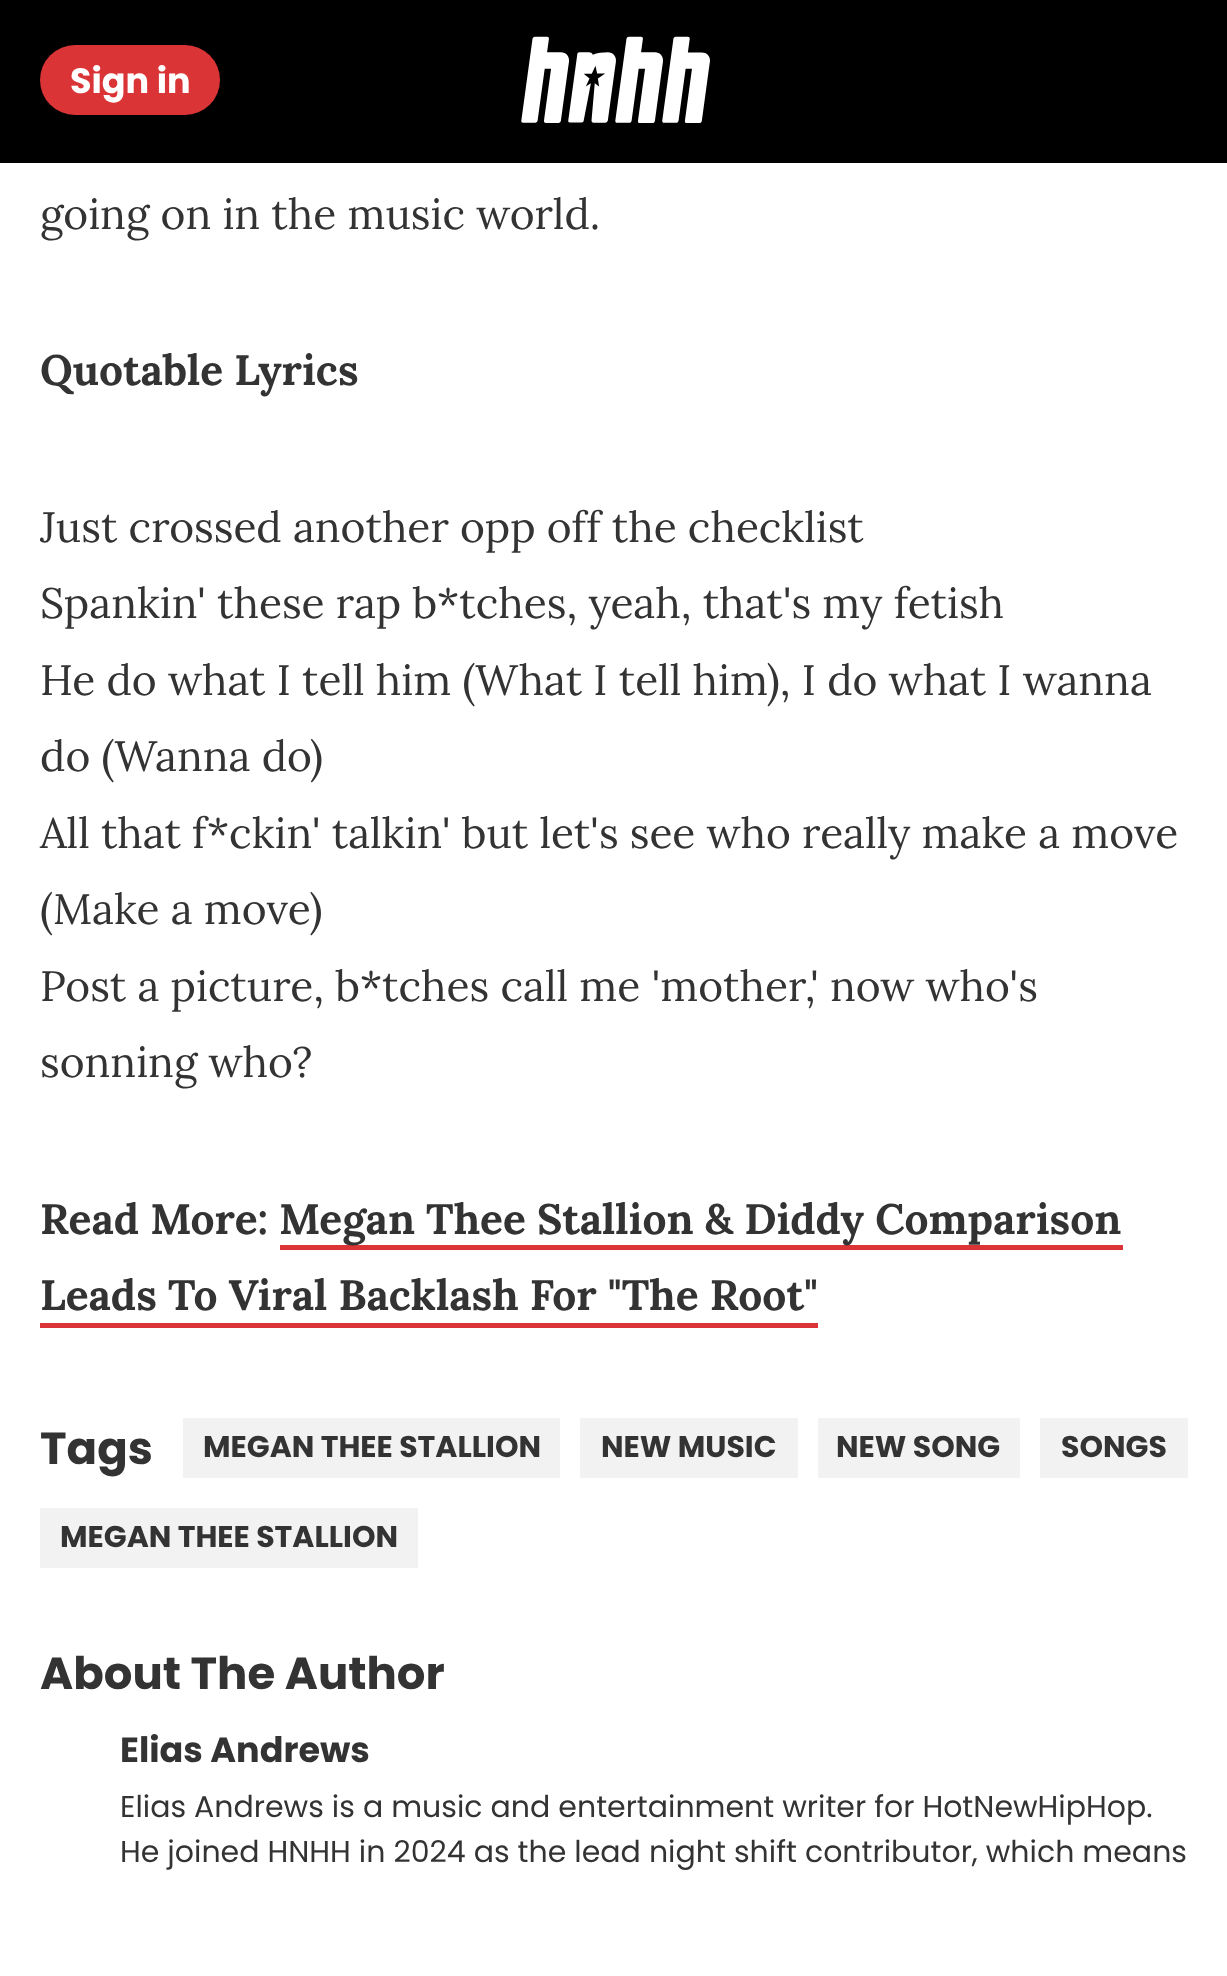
<svg xmlns="http://www.w3.org/2000/svg" width="1227" height="1976" viewBox="0 0 1227 1976">
  <rect width="100%" height="100%" fill="#ffffff"/>
  <rect x="0" y="0" width="1227" height="163" fill="#000000"/>
  <image x="521" y="36" width="189" height="87" href="img1.png"/>
  <rect x="40" y="45" width="180" height="70" rx="35" fill="#da3437"/>
  <text x="70" y="93" font-family="Poppins" font-size="35" font-weight="bold" fill="#ffffff">Sign in</text>
  <text x="40" y="229" font-family="Lora" font-size="42.5" fill="#333333">going on in the music world.</text>
  <text x="40" y="385" font-family="Lora" font-size="42.5" font-weight="bold" fill="#333333">Quotable Lyrics</text>
  <text x="40" y="542" font-family="Lora" font-size="42.5" fill="#333333">Just crossed another opp off the checklist</text>
  <text x="40" y="618" font-family="Lora" font-size="42.5" fill="#333333">Spankin' these rap b*tches, yeah, that's my fetish</text>
  <text x="40" y="695" font-family="Lora" font-size="42.5" fill="#333333">He do what I tell him (What I tell him), I do what I wanna</text>
  <text x="40" y="771" font-family="Lora" font-size="42.5" fill="#333333">do (Wanna do)</text>
  <text x="40" y="848" font-family="Lora" font-size="42.5" fill="#333333">All that f*ckin' talkin' but let's see who really make a move</text>
  <text x="40" y="924" font-family="Lora" font-size="42.5" fill="#333333">(Make a move)</text>
  <text x="40" y="1001" font-family="Lora" font-size="42.5" fill="#333333">Post a picture, b*tches call me 'mother,' now who's</text>
  <text x="40" y="1077" font-family="Lora" font-size="42.5" fill="#333333">sonning who?</text>
  <text x="40" y="1234" font-family="Lora" font-size="42.5" font-weight="bold" fill="#333333">Read More:</text>
  <rect x="280" y="1245" width="843" height="5" fill="#da3437"/>
  <text x="279" y="1234" font-family="Lora" font-size="42.5" font-weight="bold" fill="#333333">Megan Thee Stallion &amp; Diddy Comparison</text>
  <text x="40" y="1310" font-family="Lora" font-size="42.5" font-weight="bold" fill="#333333">Leads To Viral Backlash For "The Root"</text>
  <rect x="40" y="1323" width="778" height="5" fill="#da3437"/>
  <text x="40" y="1464" font-family="Poppins" font-size="45" font-weight="bold" fill="#333333">Tags</text>
  <rect x="183" y="1418" width="377" height="60" fill="#f2f2f2"/>
  <text x="203" y="1457" font-family="Poppins" font-size="30" font-weight="bold" fill="#333333">MEGAN THEE STALLION</text>
  <rect x="580" y="1418" width="218" height="60" fill="#f2f2f2"/>
  <text x="601" y="1457" font-family="Poppins" font-size="30" font-weight="bold" fill="#333333">NEW MUSIC</text>
  <rect x="818" y="1418" width="202" height="60" fill="#f2f2f2"/>
  <text x="836" y="1457" font-family="Poppins" font-size="30" font-weight="bold" fill="#333333">NEW SONG</text>
  <rect x="1040" y="1418" width="148" height="60" fill="#f2f2f2"/>
  <text x="1061" y="1457" font-family="Poppins" font-size="30" font-weight="bold" fill="#333333">SONGS</text>
  <rect x="40" y="1508" width="378" height="60" fill="#f2f2f2"/>
  <text x="60" y="1547" font-family="Poppins" font-size="30" font-weight="bold" fill="#333333">MEGAN THEE STALLION</text>
  <text x="40" y="1689" font-family="Poppins" font-size="45" font-weight="bold" fill="#333333">About The Author</text>
  <text x="120" y="1762" font-family="Poppins" font-size="35" font-weight="bold" fill="#333333">Elias Andrews</text>
  <text x="120" y="1817" font-family="Poppins" font-size="30" fill="#333333">Elias Andrews is a music and entertainment writer for HotNewHipHop.</text>
  <text x="120" y="1862" font-family="Poppins" font-size="30" fill="#333333">He joined HNHH in 2024 as the lead night shift contributor, which means</text>
</svg>
